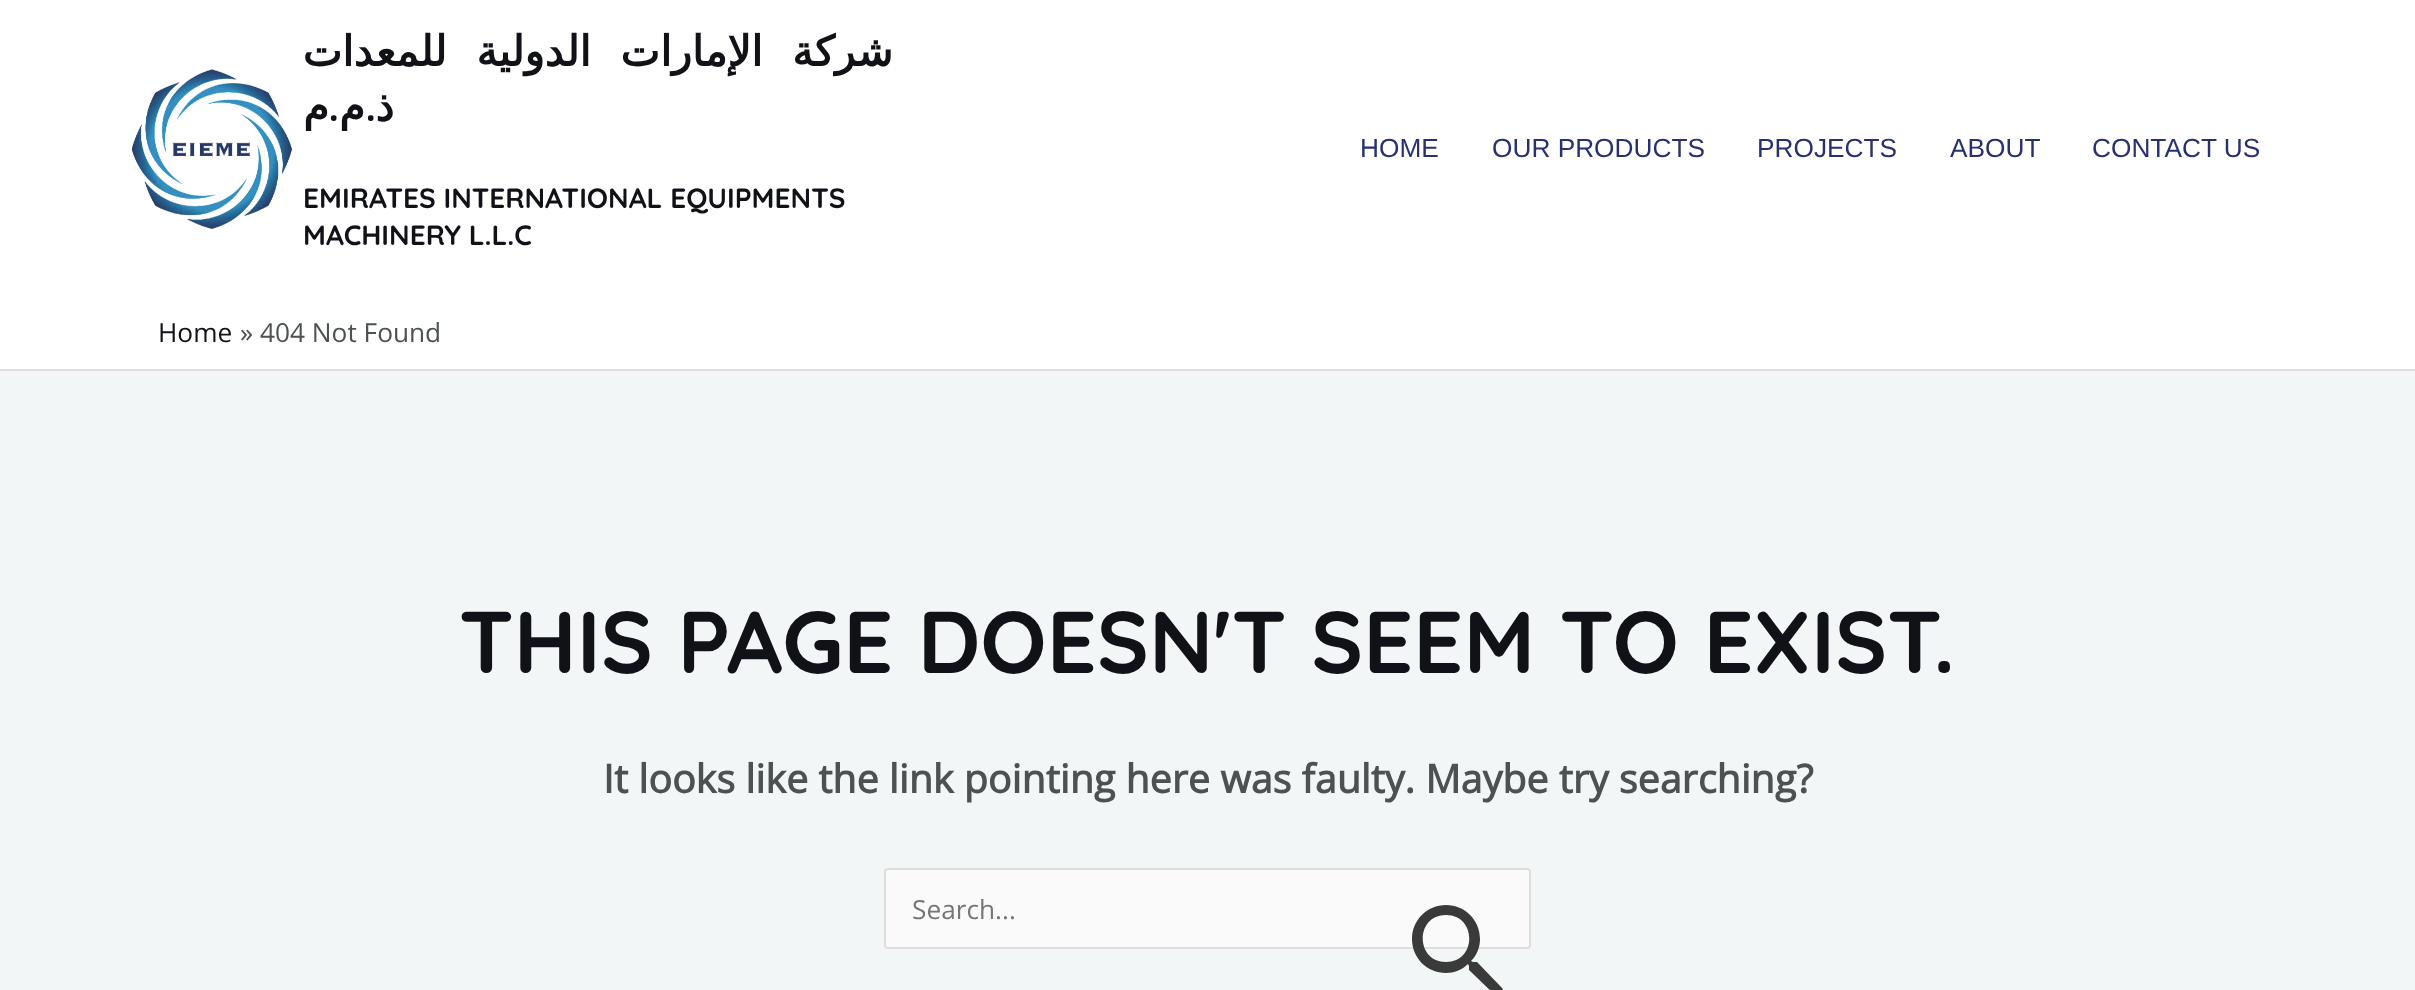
<svg xmlns="http://www.w3.org/2000/svg" width="2415" height="990" viewBox="0 0 2415 990">
  <rect width="100%" height="100%" fill="#f3f6f6"/>
  <rect x="0" y="0" width="2415" height="369" fill="#ffffff"/>
  <image x="131" y="69" width="161" height="160" href="img1.png"/>
  <text x="893" y="66" word-spacing="16" font-family="DejaVu Sans" font-size="42" font-weight="bold" direction="rtl" fill="#101218">شركة الإمارات الدولية للمعدات</text>
  <text x="329" y="121" font-family="DejaVu Sans" font-size="42" font-weight="bold" direction="rtl" fill="#101218">م</text>
  <text x="339" y="121" font-family="Quicksand" font-size="42" font-weight="300" direction="rtl" fill="#101218">.</text>
  <text x="365" y="121" font-family="DejaVu Sans" font-size="42" font-weight="bold" direction="rtl" fill="#101218">م</text>
  <text x="376" y="121" font-family="Quicksand" font-size="42" font-weight="300" direction="rtl" fill="#101218">.</text>
  <text x="394" y="121" font-family="DejaVu Sans" font-size="42" font-weight="bold" direction="rtl" fill="#101218">ذ</text>
  <text x="303" y="208" font-family="Quicksand" font-size="28" font-weight="300" fill="#101218">EMIRATES INTERNATIONAL EQUIPMENTS</text>
  <text x="303" y="245" font-family="Quicksand" font-size="28" font-weight="300" fill="#101218">MACHINERY L.L.C</text>
  <text x="1360" y="157" font-family="Liberation Sans" font-size="26.25" fill="#273171">HOME</text>
  <text x="1492" y="157" font-family="Liberation Sans" font-size="26.25" fill="#273171">OUR PRODUCTS</text>
  <text x="1757" y="157" font-family="Liberation Sans" font-size="26.25" fill="#273171">PROJECTS</text>
  <text x="1950" y="157" font-family="Liberation Sans" font-size="26.25" fill="#273171">ABOUT</text>
  <text x="2092" y="157" font-family="Liberation Sans" font-size="26.25" fill="#273171">CONTACT US</text>
  <rect x="0" y="369" width="2415" height="2" fill="#dddddd"/>
  <text x="158" y="342" font-family="Open Sans" font-size="26.25" fill="#101218">Home</text>
  <text x="240" y="342" font-family="Open Sans" font-size="26.25" fill="#4c5253">»</text>
  <text x="260" y="342" font-family="Open Sans" font-size="26.25" fill="#4c5253">404 Not Found</text>
  <text x="459" y="673" font-family="Quicksand" font-size="87.5" font-weight="300" fill="#101218">THIS PAGE DOESN'T SEEM TO EXIST.</text>
  <text x="603" y="793" font-family="Open Sans" font-size="39.4" font-weight="bold" fill="#4c5253">It looks like the link pointing here was faulty. Maybe try searching?</text>
  <rect x="885" y="869" width="645" height="79" rx="3" fill="#fafafa" stroke="#dddddd" stroke-width="2"/>
  <text x="912" y="919" font-family="Open Sans" font-size="26.25" fill="#757575">Search...</text>
  <path d="M1477 962H1473L1471 961C1477 955 1480 947 1480 939C1480 920 1465 905 1446 905C1427 905 1412 920 1412 939C1412 958 1427 973 1446 973C1454 973 1462 970 1468 964L1469 966V970L1496 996L1503 989ZM1446 962C1415 962 1415 915 1446 915C1477 915 1477 962 1446 962Z" fill="#3a3a3a"/>
</svg>
